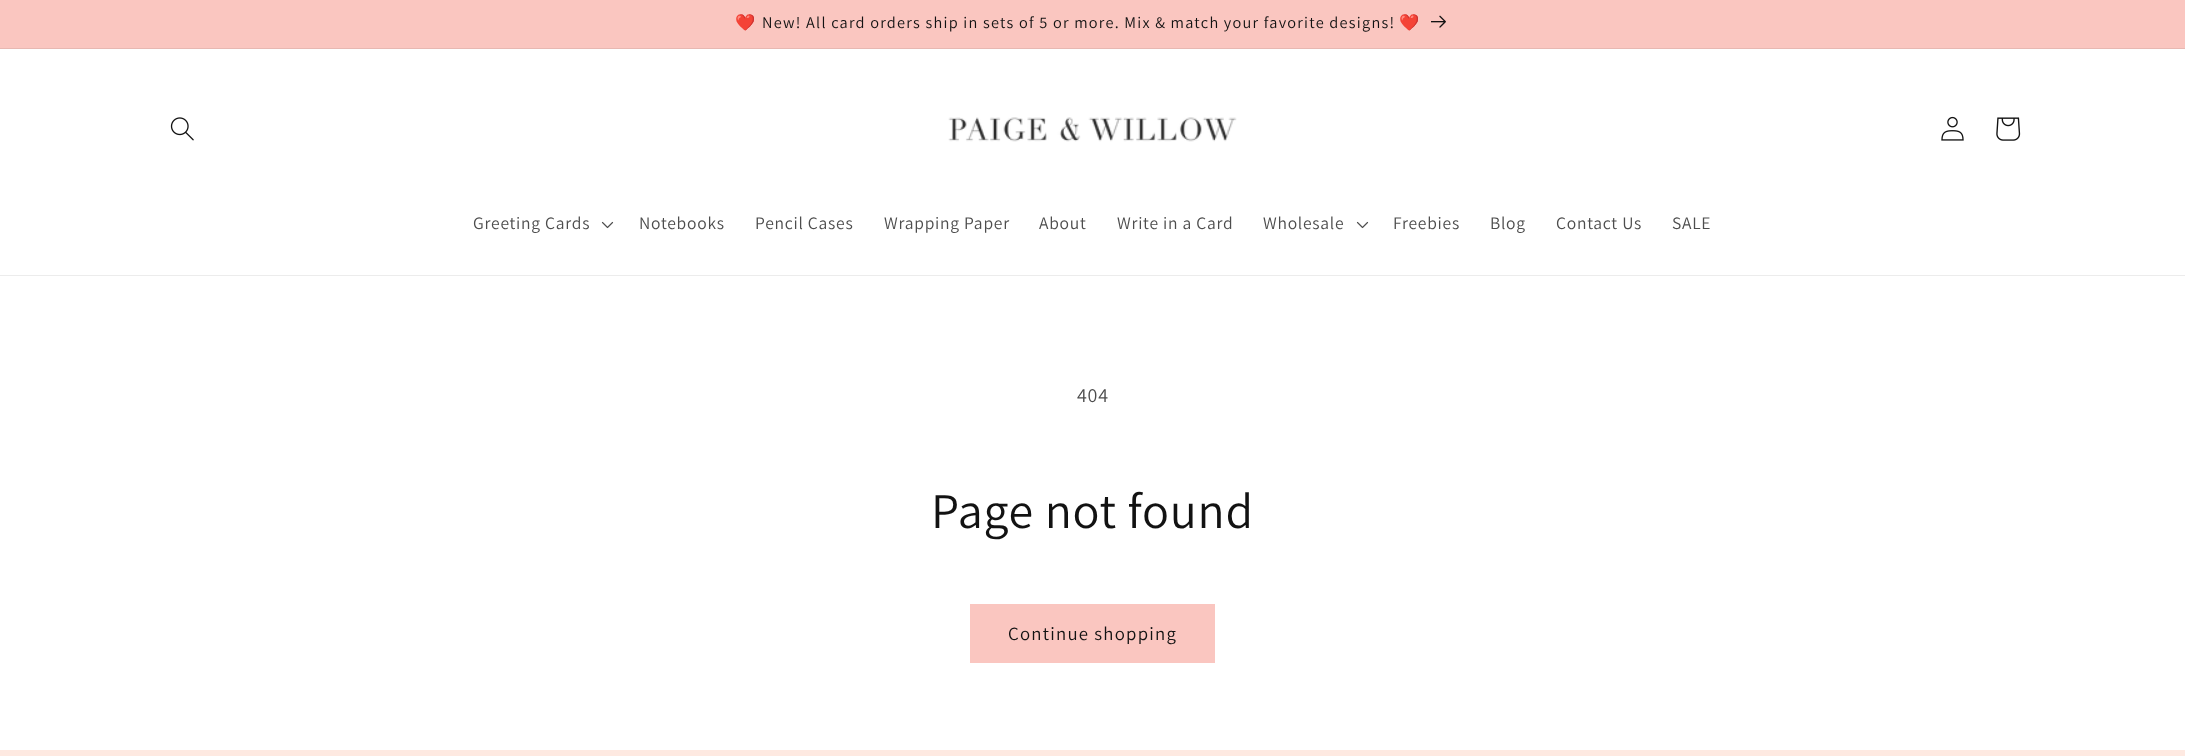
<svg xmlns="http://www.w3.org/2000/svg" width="2185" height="756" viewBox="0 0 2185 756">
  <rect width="100%" height="100%" fill="#ffffff"/>
  <rect x="0" y="0" width="2185" height="48" fill="#fac6c0"/>
  <rect x="0" y="48" width="2185" height="1" fill="#e7b8b2"/>
  <text x="735" y="28" font-family="Noto Color Emoji" font-size="16.25" letter-spacing="1.25" fill="#121212">❤️</text>
  <text x="762" y="28" word-spacing="-0.1" font-family="Assistant" font-size="16.25" letter-spacing="1.25" fill="#121212">New! All card orders ship in sets of 5 or more. Mix &amp; match your favorite designs!</text>
  <text x="1399" y="28" font-family="Noto Color Emoji" font-size="16.25" letter-spacing="1.25" fill="#121212">❤️</text>
  <image x="1431" y="15" width="15" height="13" href="img1.png"/>
  <rect x="0" y="275" width="2185" height="1" fill="#ececec"/>
  <image x="170" y="117" width="24" height="24" href="img2.png"/>
  <image x="948" y="117" width="289" height="25" href="img3.png"/>
  <image x="1941" y="116" width="23" height="25" href="img4.png"/>
  <image x="1996" y="117" width="25" height="24" href="img5.png"/>
  <text x="473" y="229" font-family="Assistant" font-size="17.5" letter-spacing="0.75" fill="#4d4d4d">Greeting Cards</text>
  <image x="601" y="221" width="13" height="8" href="img6.png"/>
  <text x="639" y="229" font-family="Assistant" font-size="17.5" letter-spacing="0.75" fill="#4d4d4d">Notebooks</text>
  <text x="755" y="229" font-family="Assistant" font-size="17.5" letter-spacing="0.75" fill="#4d4d4d">Pencil Cases</text>
  <text x="884" y="229" font-family="Assistant" font-size="17.5" letter-spacing="0.75" fill="#4d4d4d">Wrapping Paper</text>
  <text x="1039" y="229" font-family="Assistant" font-size="17.5" letter-spacing="0.75" fill="#4d4d4d">About</text>
  <text x="1117" y="229" font-family="Assistant" font-size="17.5" letter-spacing="0.75" fill="#4d4d4d">Write in a Card</text>
  <text x="1263" y="229" font-family="Assistant" font-size="17.5" letter-spacing="0.75" fill="#4d4d4d">Wholesale</text>
  <image x="1356" y="221" width="13" height="8" href="img6.png"/>
  <text x="1393" y="229" font-family="Assistant" font-size="17.5" letter-spacing="0.75" fill="#4d4d4d">Freebies</text>
  <text x="1490" y="229" font-family="Assistant" font-size="17.5" letter-spacing="0.75" fill="#4d4d4d">Blog</text>
  <text x="1556" y="229" font-family="Assistant" font-size="17.5" letter-spacing="0.75" fill="#4d4d4d">Contact Us</text>
  <text x="1672" y="229" font-family="Assistant" font-size="17.5" letter-spacing="0.75" fill="#4d4d4d">SALE</text>
  <text x="1077" y="402" font-family="Assistant" font-size="20" letter-spacing="0.75" fill="#4d4d4d">404</text>
  <text x="931" y="528" font-family="Assistant" font-size="50" letter-spacing="0.75" fill="#121212">Page not found</text>
  <rect x="970" y="604" width="245" height="59" fill="#fac6c0"/>
  <text x="1008" y="640" font-family="Assistant" font-size="18.75" letter-spacing="1.25" fill="#121212">Continue shopping</text>
  <rect x="0" y="750" width="2185" height="6" fill="#fee9e1"/>
</svg>
